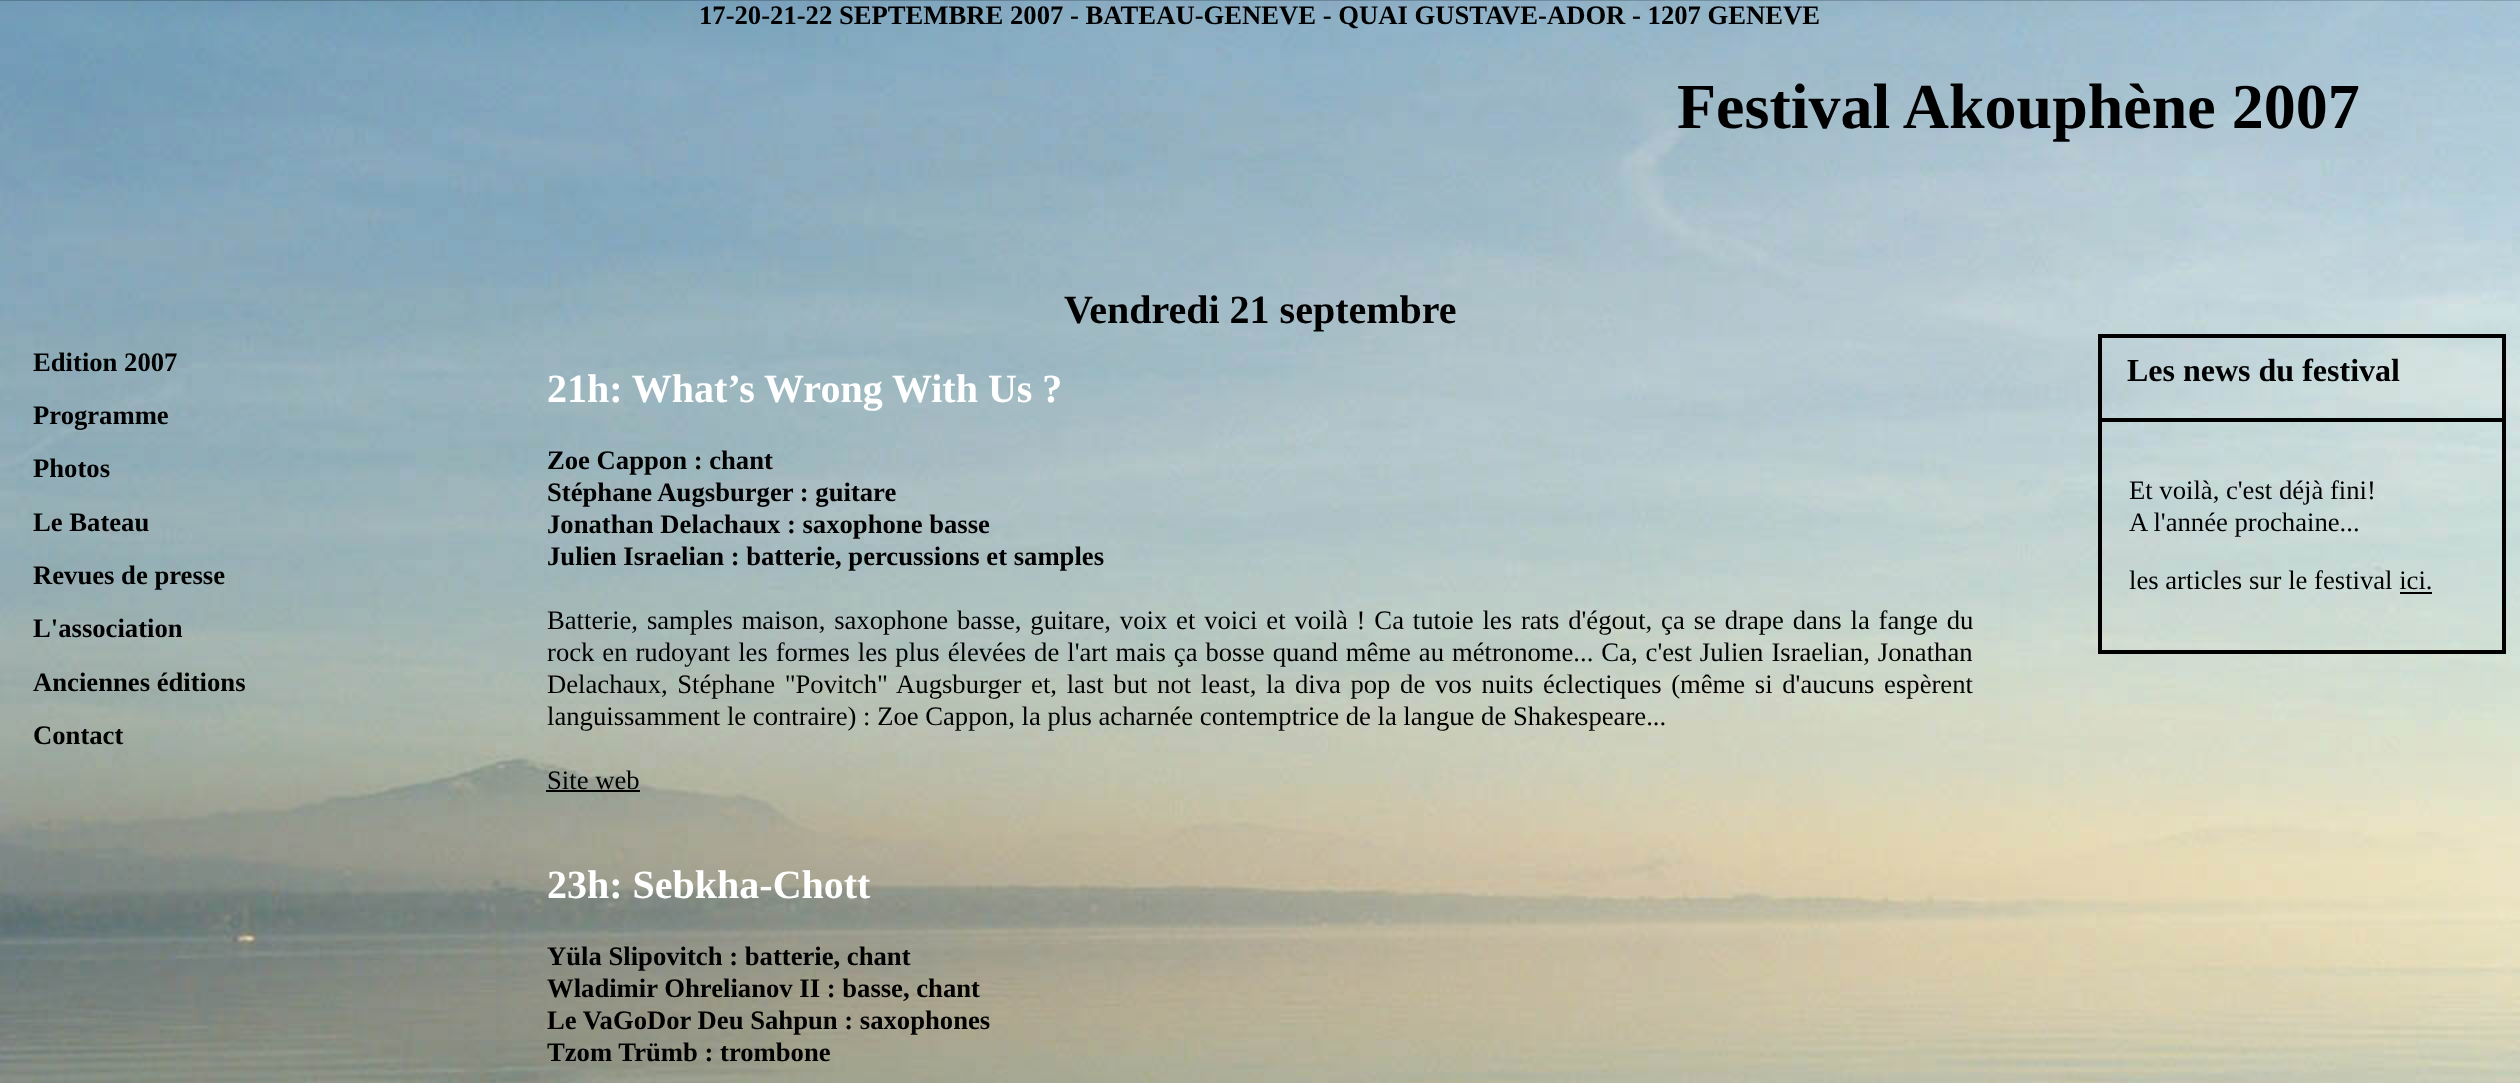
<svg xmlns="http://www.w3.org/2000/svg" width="2520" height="1083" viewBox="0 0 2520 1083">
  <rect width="100%" height="100%" fill="#ffffff"/>
  <image x="0" y="0" width="2520" height="1083" href="img1.png"/>
  <text x="699" y="24" font-family="Liberation Serif" font-size="26.67" font-weight="bold" fill="#000000">17-20-21-22 SEPTEMBRE 2007 - BATEAU-GENEVE - QUAI GUSTAVE-ADOR - 1207 GENEVE</text>
  <text x="1677" y="128" font-family="Liberation Serif" font-size="64" font-weight="bold" fill="#000000">Festival Akouphène 2007</text>
  <text x="33" y="371" font-family="Liberation Serif" font-size="26.67" font-weight="bold" fill="#000000">Edition 2007</text>
  <text x="33" y="424" font-family="Liberation Serif" font-size="26.67" font-weight="bold" fill="#000000">Programme</text>
  <text x="33" y="477" font-family="Liberation Serif" font-size="26.67" font-weight="bold" fill="#000000">Photos</text>
  <text x="33" y="531" font-family="Liberation Serif" font-size="26.67" font-weight="bold" fill="#000000">Le Bateau</text>
  <text x="33" y="584" font-family="Liberation Serif" font-size="26.67" font-weight="bold" fill="#000000">Revues de presse</text>
  <text x="33" y="637" font-family="Liberation Serif" font-size="26.67" font-weight="bold" fill="#000000">L'association</text>
  <text x="33" y="691" font-family="Liberation Serif" font-size="26.67" font-weight="bold" fill="#000000">Anciennes éditions</text>
  <text x="33" y="744" font-family="Liberation Serif" font-size="26.67" font-weight="bold" fill="#000000">Contact</text>
  <text x="1064" y="323" font-family="Liberation Serif" font-size="40" font-weight="bold" fill="#000000">Vendredi 21 septembre</text>
  <text x="547" y="402" font-family="Liberation Serif" font-size="40" font-weight="bold" fill="#ffffff">21h: What’s Wrong With Us ?</text>
  <text x="547" y="469" font-family="Liberation Serif" font-size="26.67" font-weight="bold" fill="#000000">Zoe Cappon : chant</text>
  <text x="547" y="501" font-family="Liberation Serif" font-size="26.67" font-weight="bold" fill="#000000">Stéphane Augsburger : guitare</text>
  <text x="547" y="533" font-family="Liberation Serif" font-size="26.67" font-weight="bold" fill="#000000">Jonathan Delachaux : saxophone basse</text>
  <text x="547" y="565" font-family="Liberation Serif" font-size="26.67" font-weight="bold" fill="#000000">Julien Israelian : batterie, percussions et samples</text>
  <text x="547" y="629" word-spacing="2.2" font-family="Liberation Serif" font-size="26.67" fill="#000000">Batterie, samples maison, saxophone basse, guitare, voix et voici et voilà ! Ca tutoie les rats d'égout, ça se drape dans la fange du</text>
  <text x="547" y="661" word-spacing="1.3" font-family="Liberation Serif" font-size="26.67" fill="#000000">rock en rudoyant les formes les plus élevées de l'art mais ça bosse quand même au métronome... Ca, c'est Julien Israelian, Jonathan</text>
  <text x="547" y="693" word-spacing="3" font-family="Liberation Serif" font-size="26.67" fill="#000000">Delachaux, Stéphane "Povitch" Augsburger et, last but not least, la diva pop de vos nuits éclectiques (même si d'aucuns espèrent</text>
  <text x="547" y="725" font-family="Liberation Serif" font-size="26.67" fill="#000000">languissamment le contraire) : Zoe Cappon, la plus acharnée contemptrice de la langue de Shakespeare...</text>
  <text x="547" y="789" font-family="Liberation Serif" font-size="26.67" fill="#000000">Site web</text>
  <rect x="546" y="790" width="94" height="2" fill="#000000"/>
  <text x="547" y="898" font-family="Liberation Serif" font-size="40" font-weight="bold" fill="#ffffff">23h: Sebkha-Chott</text>
  <text x="547" y="965" font-family="Liberation Serif" font-size="26.67" font-weight="bold" fill="#000000">Yüla Slipovitch : batterie, chant</text>
  <text x="547" y="997" font-family="Liberation Serif" font-size="26.67" font-weight="bold" fill="#000000">Wladimir Ohrelianov II : basse, chant</text>
  <text x="547" y="1029" font-family="Liberation Serif" font-size="26.67" font-weight="bold" fill="#000000">Le VaGoDor Deu Sahpun : saxophones</text>
  <text x="547" y="1061" font-family="Liberation Serif" font-size="26.67" font-weight="bold" fill="#000000">Tzom Trümb : trombone</text>
  <rect x="2100" y="336" width="404" height="316" fill="none" stroke="#000000" stroke-width="4"/>
  <text x="2127" y="381" font-family="Liberation Serif" font-size="32" font-weight="bold" fill="#000000">Les news du festival</text>
  <rect x="2102" y="418" width="400" height="4" fill="#000000"/>
  <text x="2129" y="499" font-family="Liberation Serif" font-size="26.67" fill="#000000">Et voilà, c'est déjà fini!</text>
  <text x="2129" y="531" font-family="Liberation Serif" font-size="26.67" fill="#000000">A l'année prochaine...</text>
  <text x="2129" y="589" font-family="Liberation Serif" font-size="26.67" fill="#000000">les articles sur le festival ici.</text>
  <rect x="2400" y="592" width="32" height="2" fill="#000000"/>
</svg>
